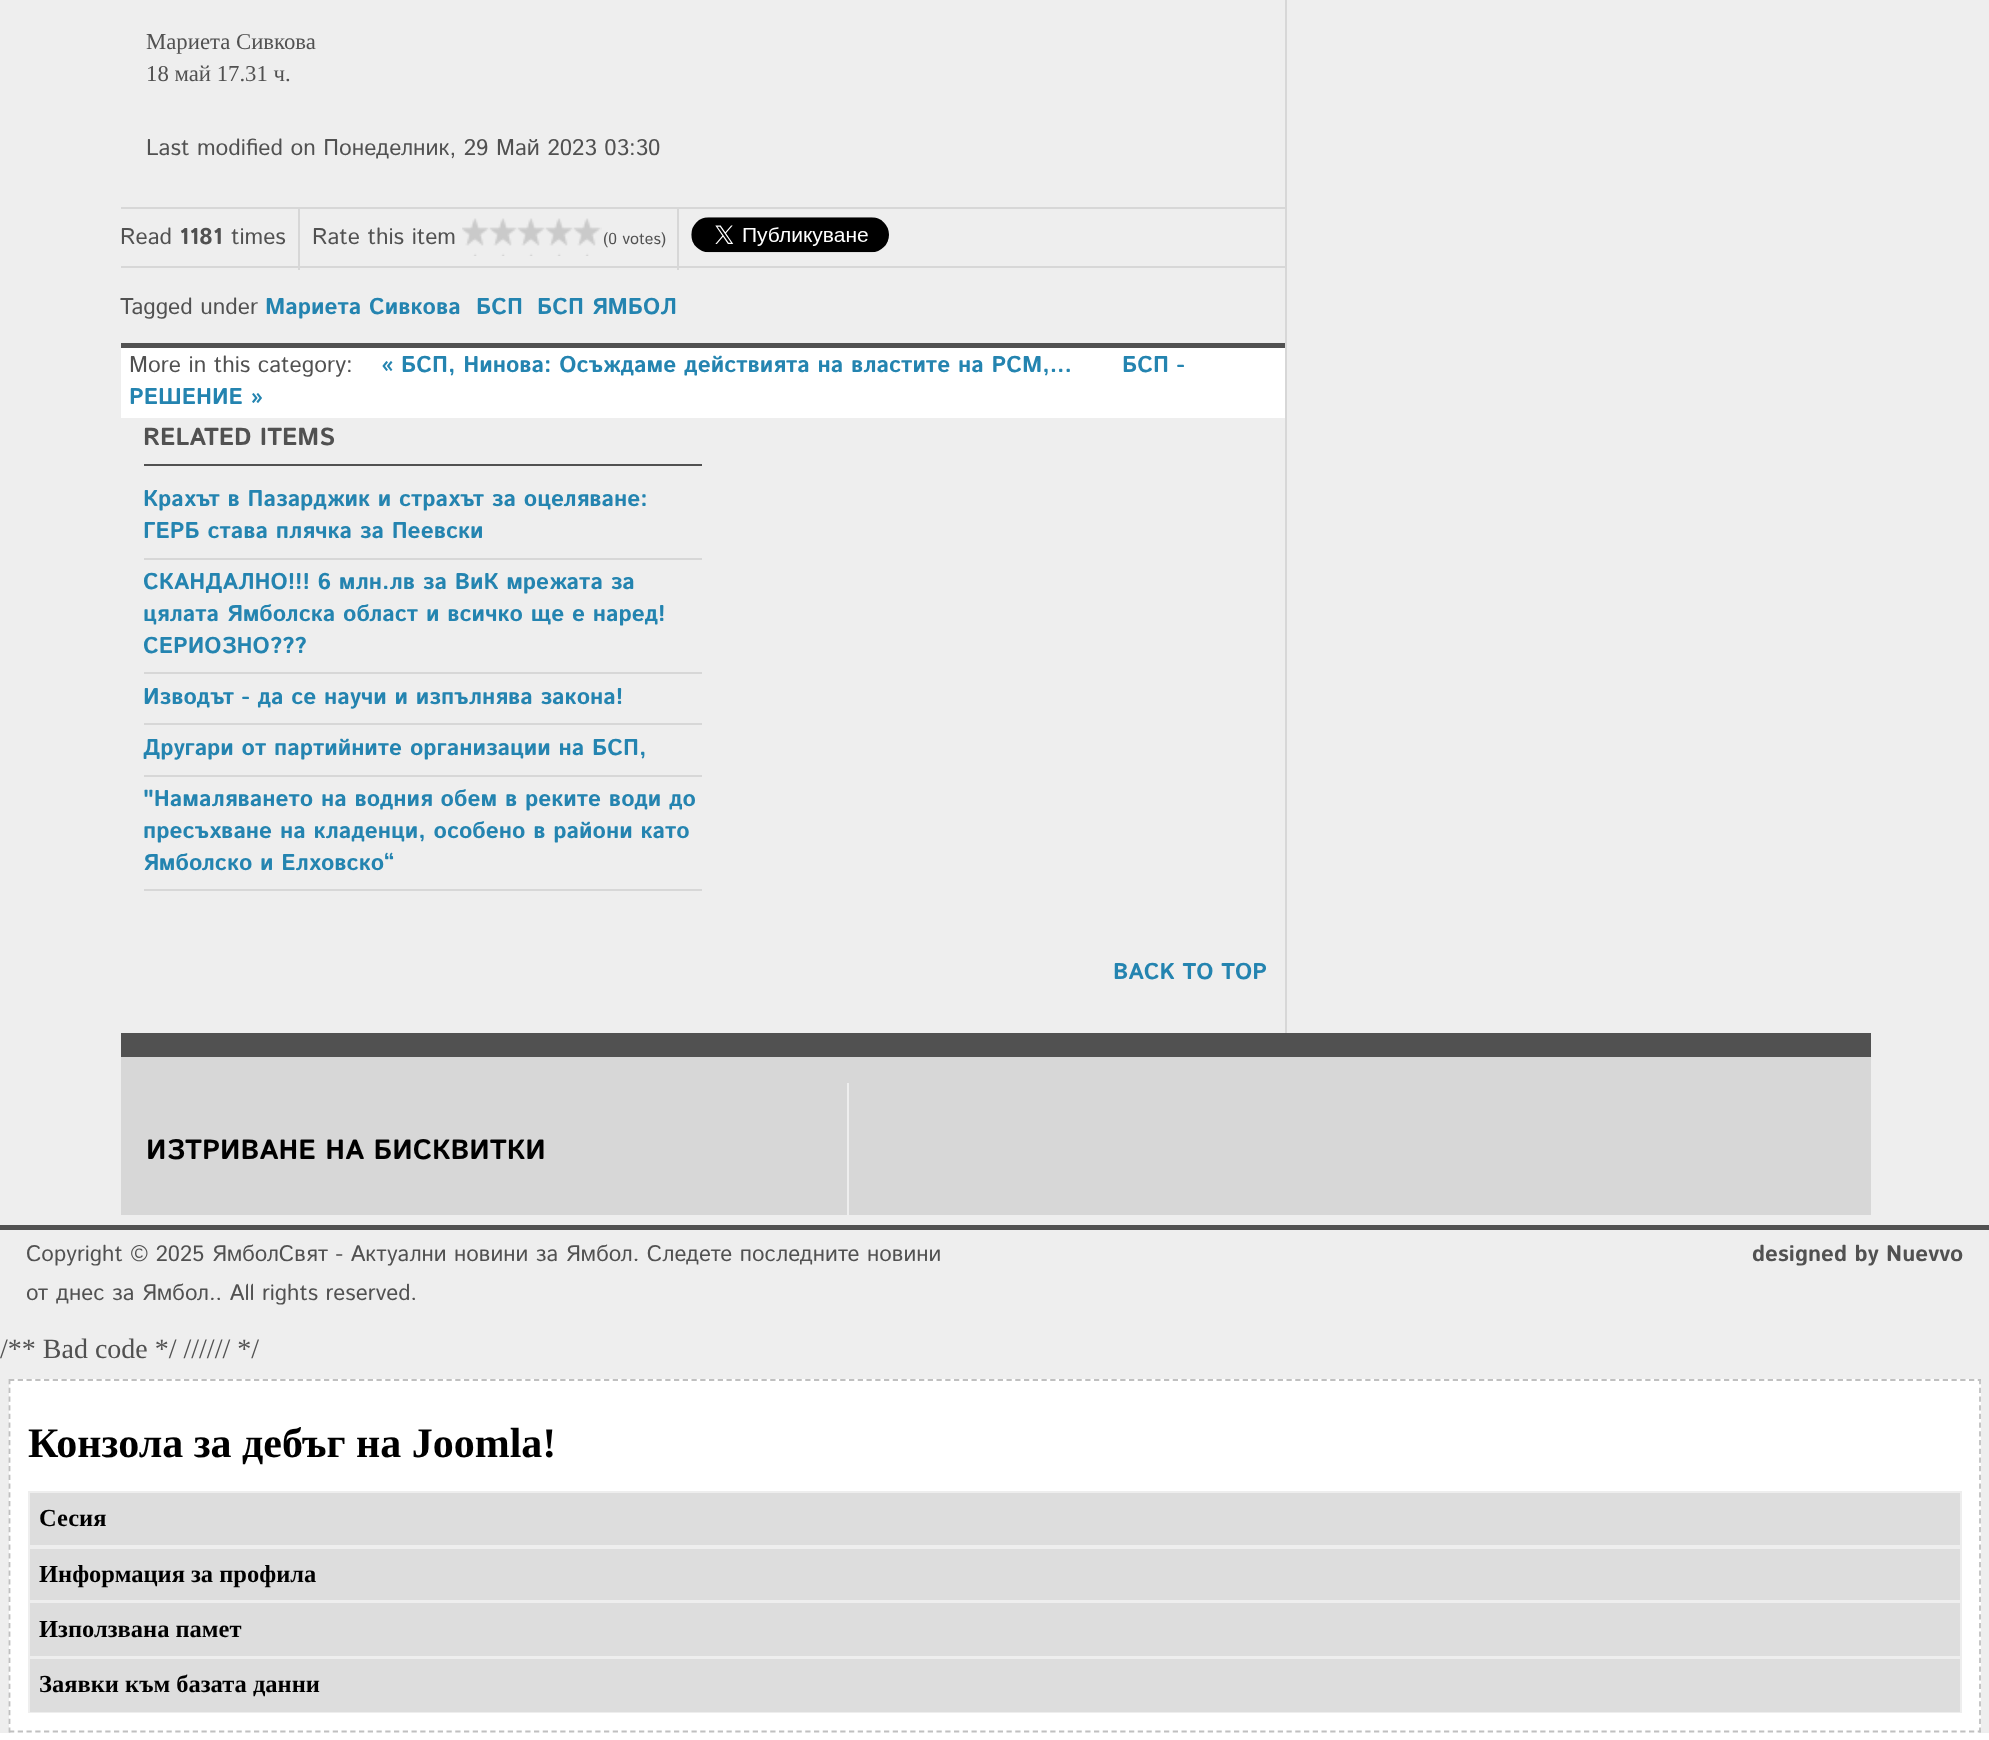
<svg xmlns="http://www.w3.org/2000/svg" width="1989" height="1740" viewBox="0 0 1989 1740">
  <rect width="100%" height="100%" fill="#ffffff"/>
  <rect x="0" y="0" width="1989" height="1733" fill="#eeeeee"/>
  <rect x="1285" y="0" width="2" height="1033" fill="#d7d7d7"/>
  <text x="146" y="49" font-family="Liberation Serif" font-size="22.75" fill="#515151">Мариета Сивкова</text>
  <text x="146" y="81" font-family="Liberation Serif" font-size="22.75" fill="#515151">18 май 17.31 ч.</text>
  <text x="146" y="155" font-family="Istok Web" font-size="22.75" fill="#515151">Last modified on Понеделник, 29 Май 2023 03:30</text>
  <rect x="121" y="207" width="1164" height="2" fill="#d7d7d7"/>
  <rect x="121" y="266" width="1164" height="2" fill="#d7d7d7"/>
  <rect x="298" y="208" width="2" height="62" fill="#d7d7d7"/>
  <text x="120" y="244" font-family="Istok Web" font-size="22.75" fill="#515151">Read</text>
  <text x="179" y="244" font-family="Istok Web" font-size="22.75" font-weight="bold" fill="#515151">1181</text>
  <text x="231" y="244" font-family="Istok Web" font-size="22.75" fill="#515151">times</text>
  <rect x="677" y="208" width="2" height="62" fill="#d7d7d7"/>
  <text x="312" y="244" font-family="Istok Web" font-size="22.75" fill="#515151">Rate this item</text>
  <image x="462" y="218" width="140" height="38" href="img1.png"/>
  <text x="603" y="244" font-family="Istok Web" font-size="16" fill="#515151">(0 votes)</text>
  <image x="691" y="217" width="198" height="36" href="img2.png"/>
  <text x="120" y="314" font-family="Istok Web" font-size="22.75" fill="#515151">Tagged under</text>
  <text x="265" y="314" font-family="Istok Web" font-size="22.75" font-weight="bold" fill="#2484b0">Мариета Сивкова</text>
  <text x="476" y="314" font-family="Istok Web" font-size="22.75" font-weight="bold" fill="#2484b0">БСП</text>
  <text x="537" y="314" font-family="Istok Web" font-size="22.75" font-weight="bold" fill="#2484b0">БСП ЯМБОЛ</text>
  <rect x="121" y="348" width="1164" height="70" fill="#ffffff"/>
  <rect x="121" y="343" width="1164" height="5" fill="#515151"/>
  <text x="129" y="372" font-family="Istok Web" font-size="22.75" fill="#515151">More in this category:</text>
  <text x="381" y="372" font-family="Istok Web" font-size="22.75" font-weight="bold" fill="#2484b0">« БСП, Нинова: Осъждаме действията на властите на РСМ,...</text>
  <text x="1122" y="372" font-family="Istok Web" font-size="22.75" font-weight="bold" fill="#2484b0">БСП -</text>
  <text x="129" y="404" font-family="Istok Web" font-size="22.75" font-weight="bold" fill="#2484b0">РЕШЕНИЕ »</text>
  <rect x="144" y="464" width="558" height="2" fill="#515151"/>
  <text x="143" y="445" font-family="Istok Web" font-size="24.5" font-weight="bold" fill="#515151">RELATED ITEMS</text>
  <rect x="144" y="558" width="558" height="2" fill="#d7d7d7"/>
  <text x="143" y="506" font-family="Istok Web" font-size="22.75" font-weight="bold" fill="#2484b0">Крахът в Пазарджик и страхът за оцеляване:</text>
  <text x="143" y="538" font-family="Istok Web" font-size="22.75" font-weight="bold" fill="#2484b0">ГЕРБ става плячка за Пеевски</text>
  <rect x="144" y="672" width="558" height="2" fill="#d7d7d7"/>
  <text x="143" y="589" font-family="Istok Web" font-size="22.75" font-weight="bold" fill="#2484b0">СКАНДАЛНО!!! 6 млн.лв за ВиК мрежата за</text>
  <text x="143" y="621" font-family="Istok Web" font-size="22.75" font-weight="bold" fill="#2484b0">цялата Ямболска област и всичко ще е наред!</text>
  <text x="143" y="653" font-family="Istok Web" font-size="22.75" font-weight="bold" fill="#2484b0">СЕРИОЗНО???</text>
  <rect x="144" y="723" width="558" height="2" fill="#d7d7d7"/>
  <text x="143" y="704" font-family="Istok Web" font-size="22.75" font-weight="bold" fill="#2484b0">Изводът - да се научи и изпълнява закона!</text>
  <rect x="144" y="775" width="558" height="2" fill="#d7d7d7"/>
  <text x="143" y="755" font-family="Istok Web" font-size="22.75" font-weight="bold" fill="#2484b0">Другари от партийните организации на БСП,</text>
  <rect x="144" y="889" width="558" height="2" fill="#d7d7d7"/>
  <text x="143" y="806" font-family="Istok Web" font-size="22.75" font-weight="bold" fill="#2484b0">"Намаляването на водния обем в реките води до</text>
  <text x="143" y="838" font-family="Istok Web" font-size="22.75" font-weight="bold" fill="#2484b0">пресъхване на кладенци, особено в райони като</text>
  <text x="143" y="870" font-family="Istok Web" font-size="22.75" font-weight="bold" fill="#2484b0">Ямболско и Елховско“</text>
  <text x="1113" y="979" font-family="Istok Web" font-size="22.75" font-weight="bold" fill="#2484b0">BACK TO TOP</text>
  <rect x="121" y="1057" width="1750" height="158" fill="#d7d7d7"/>
  <rect x="121" y="1033" width="1750" height="24" fill="#515151"/>
  <rect x="847" y="1083" width="2" height="132" fill="#eeeeee"/>
  <text x="146" y="1159" font-family="Istok Web" font-size="28" font-weight="bold" fill="#000000">ИЗТРИВАНЕ НА БИСКВИТКИ</text>
  <rect x="0" y="1225" width="1989" height="5" fill="#515151"/>
  <text x="26" y="1261" font-family="Istok Web" font-size="22.4" fill="#515151">Copyright © 2025 ЯмболСвят - Актуални новини за Ямбол. Следете последните новини</text>
  <text x="26" y="1300" font-family="Istok Web" font-size="22.4" fill="#515151">от днес за Ямбол.. All rights reserved.</text>
  <text x="1752" y="1261" font-family="Istok Web" font-size="22.4" font-weight="bold" fill="#515151">designed by Nuevvo</text>
  <text x="0" y="1358" font-family="Liberation Serif" font-size="28" fill="#515151">/** Bad code */ ////// */</text>
  <rect x="9" y="1379" width="1972" height="354" fill="#ffffff"/>
  <path d="M9 1380H1981" fill="none" stroke="#c0c0c0" stroke-width="1.8" stroke-dasharray="5.25 3.5"/>
  <path d="M1980 1379V1732.5" fill="none" stroke="#c0c0c0" stroke-width="1.8" stroke-dasharray="5.25 3.46"/>
  <path d="M9 1731.5H1981" fill="none" stroke="#c0c0c0" stroke-width="1.8" stroke-dasharray="5.25 3.5"/>
  <path d="M9.5 1379V1732.5" fill="none" stroke="#c0c0c0" stroke-width="1.8" stroke-dasharray="5.25 3.46"/>
  <text x="28" y="1457" font-family="Liberation Serif" font-size="42" font-weight="bold" fill="#000000">Конзола за дебъг на Joomla!</text>
  <rect x="29" y="1492" width="1932" height="54" fill="#dddddd" stroke="#eeeeee" stroke-width="2"/>
  <text x="39" y="1526" font-family="Liberation Serif" font-size="24.5" font-weight="bold" fill="#000000">Сесия</text>
  <rect x="29" y="1548" width="1932" height="52" fill="none" stroke="#eeeeee" stroke-width="2"/>
  <rect x="30" y="1549" width="1930" height="51" fill="#dddddd"/>
  <text x="39" y="1582" font-family="Liberation Serif" font-size="24.5" font-weight="bold" fill="#000000">Информация за профила</text>
  <rect x="29" y="1602" width="1932" height="54" fill="none" stroke="#eeeeee" stroke-width="2"/>
  <rect x="30" y="1603" width="1930" height="53" fill="#dddddd"/>
  <text x="39" y="1637" font-family="Liberation Serif" font-size="24.5" font-weight="bold" fill="#000000">Използвана памет</text>
  <rect x="29" y="1658" width="1932" height="54" fill="none" stroke="#eeeeee" stroke-width="2"/>
  <rect x="30" y="1659" width="1930" height="53" fill="#dddddd"/>
  <text x="39" y="1692" font-family="Liberation Serif" font-size="24.5" font-weight="bold" fill="#000000">Заявки към базата данни</text>
</svg>
